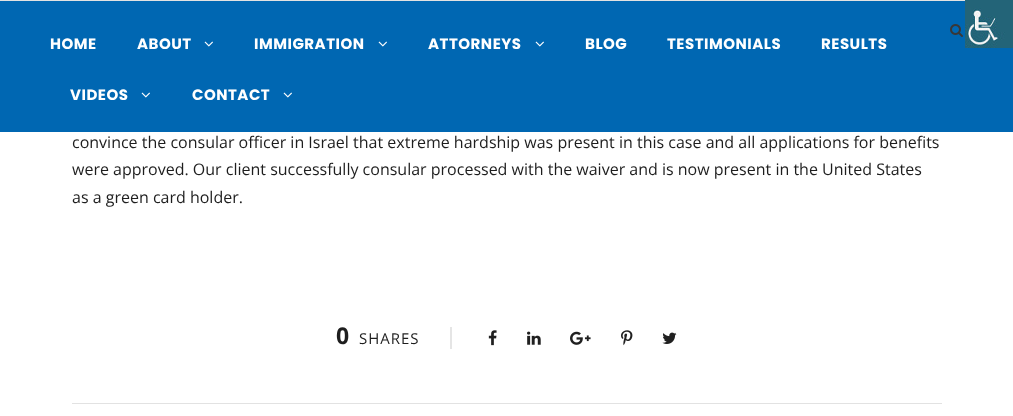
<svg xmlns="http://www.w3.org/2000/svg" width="1013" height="416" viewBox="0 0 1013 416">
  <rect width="100%" height="100%" fill="#ffffff"/>
  <rect x="0" y="1" width="1013" height="131" fill="#0067b2"/>
  <image x="965" y="0" width="48" height="48" href="img1.png"/>
  <rect x="0" y="0" width="965" height="1" fill="#e2e2e2"/>
  <image x="950" y="24" width="13" height="13" href="img2.png"/>
  <text x="50" y="49" font-family="Poppins" font-size="15" font-weight="bold" letter-spacing="0.5" fill="#ffffff">HOME</text>
  <text x="137" y="49" font-family="Poppins" font-size="15" font-weight="bold" letter-spacing="0.5" fill="#ffffff">ABOUT</text>
  <image x="204" y="41" width="9" height="6" href="img3.png"/>
  <text x="254" y="49" font-family="Poppins" font-size="15" font-weight="bold" letter-spacing="0.5" fill="#ffffff">IMMIGRATION</text>
  <image x="378" y="41" width="9" height="6" href="img3.png"/>
  <text x="428" y="49" font-family="Poppins" font-size="15" font-weight="bold" letter-spacing="0.5" fill="#ffffff">ATTORNEYS</text>
  <image x="535" y="41" width="9" height="6" href="img3.png"/>
  <text x="585" y="49" font-family="Poppins" font-size="15" font-weight="bold" letter-spacing="0.5" fill="#ffffff">BLOG</text>
  <text x="667" y="49" font-family="Poppins" font-size="15" font-weight="bold" letter-spacing="0.5" fill="#ffffff">TESTIMONIALS</text>
  <text x="821" y="49" font-family="Poppins" font-size="15" font-weight="bold" letter-spacing="0.5" fill="#ffffff">RESULTS</text>
  <text x="70" y="100" font-family="Poppins" font-size="15" font-weight="bold" letter-spacing="0.5" fill="#ffffff">VIDEOS</text>
  <image x="141" y="92" width="9" height="6" href="img3.png"/>
  <text x="192" y="100" font-family="Poppins" font-size="15" font-weight="bold" letter-spacing="0.5" fill="#ffffff">CONTACT</text>
  <image x="283" y="92" width="9" height="6" href="img3.png"/>
  <text x="72" y="148" font-family="Open Sans" font-size="16" fill="#1e1e1e">convince the consular officer in Israel that extreme hardship was present in this case and all applications for benefits</text>
  <text x="72" y="175" font-family="Open Sans" font-size="16" fill="#1e1e1e">were approved. Our client successfully consular processed with the waiver and is now present in the United States</text>
  <text x="72" y="203" font-family="Open Sans" font-size="16" fill="#1e1e1e">as a green card holder.</text>
  <text x="336" y="344" font-family="Open Sans" font-size="23" font-weight="bold" fill="#1e1e1e">0</text>
  <text x="359" y="344" font-family="Open Sans" font-size="15" letter-spacing="1" fill="#1e1e1e">SHARES</text>
  <rect x="450" y="327" width="2" height="22" fill="#e5e5e5"/>
  <image x="488" y="330" width="9" height="16" href="img4.png"/>
  <image x="527" y="331" width="14" height="14" href="img5.png"/>
  <image x="570" y="331" width="21" height="14" href="img6.png"/>
  <image x="621" y="330" width="12" height="16" href="img7.png"/>
  <image x="662" y="332" width="15" height="12" href="img8.png"/>
  <rect x="72" y="403" width="870" height="1" fill="#e2e2e2"/>
</svg>
